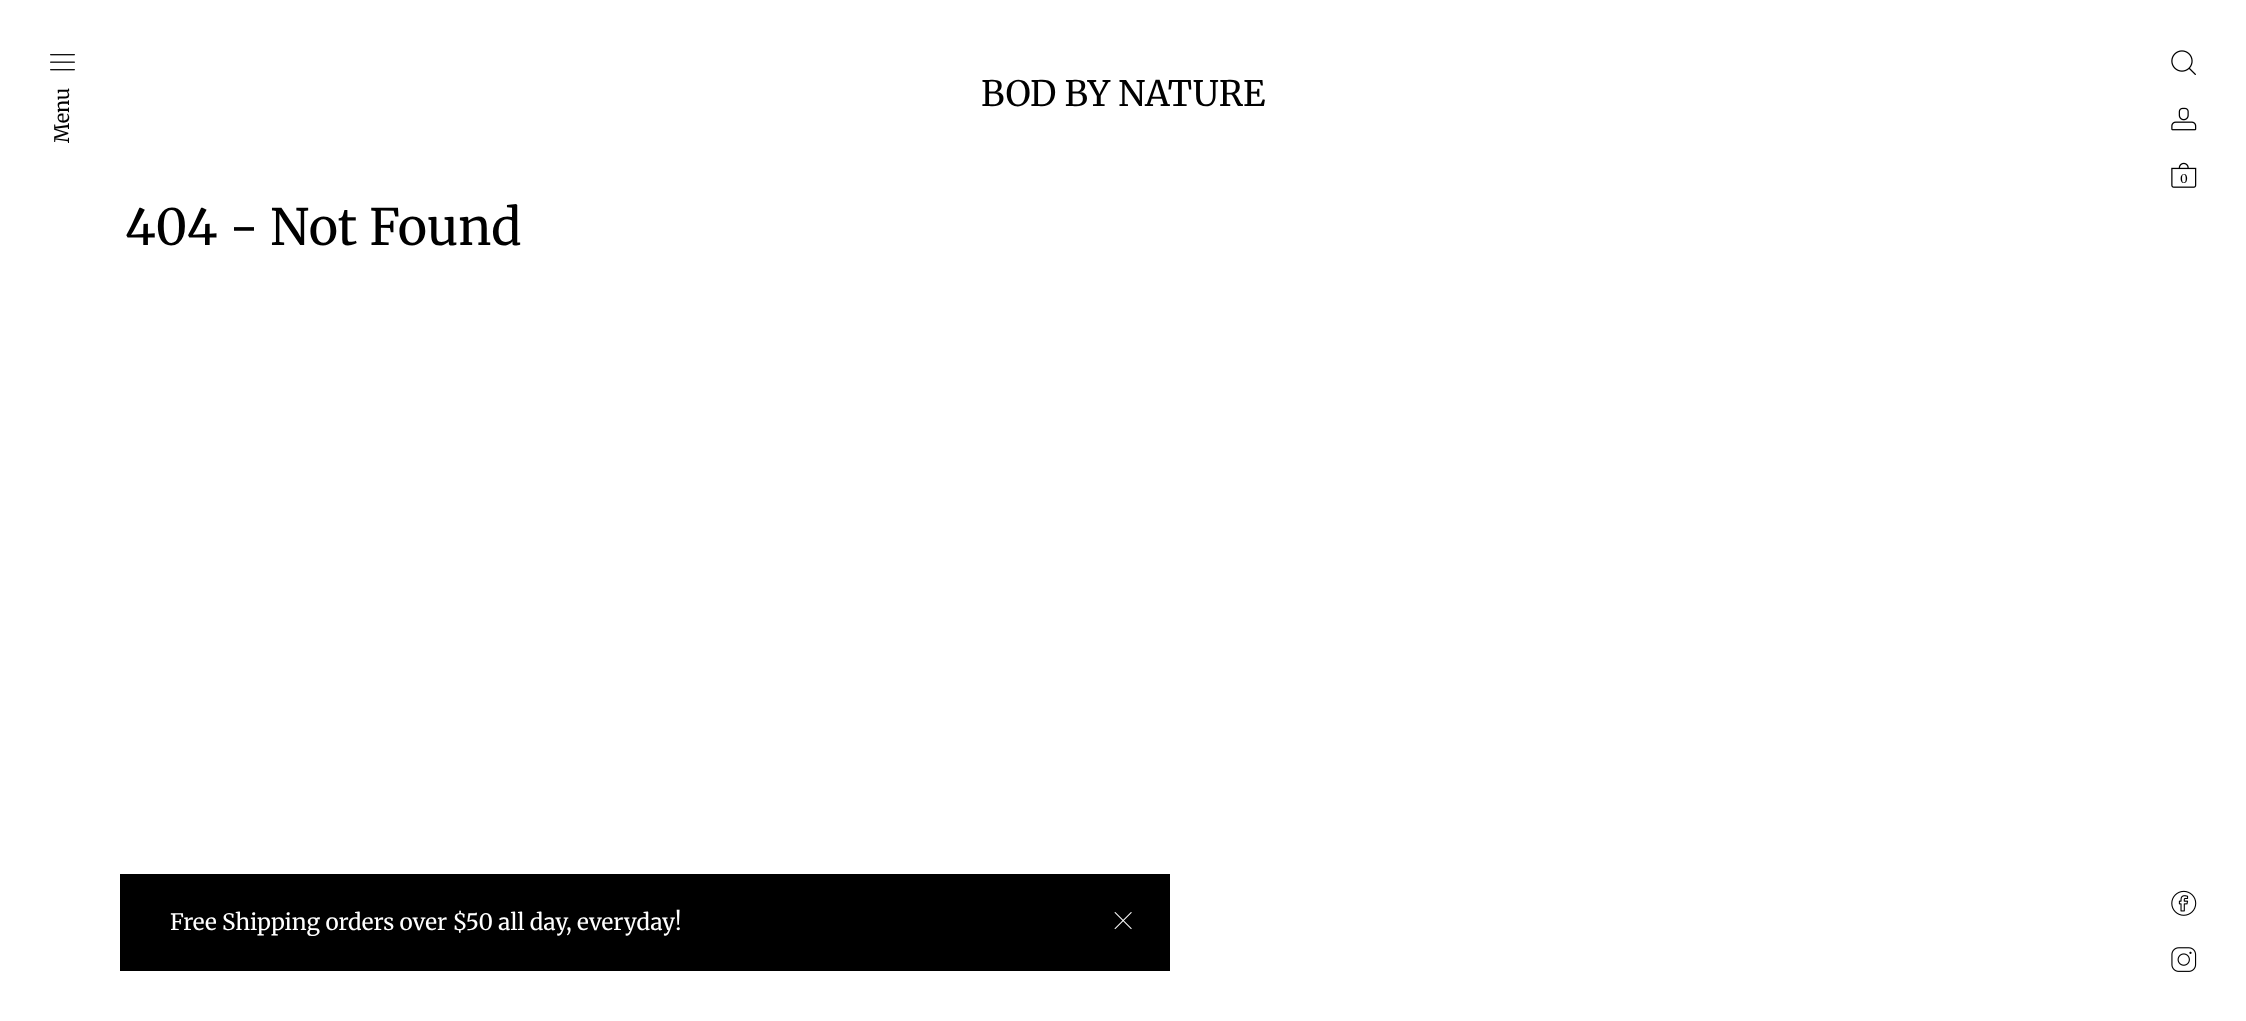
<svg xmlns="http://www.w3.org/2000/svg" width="2246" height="1021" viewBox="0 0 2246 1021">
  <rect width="100%" height="100%" fill="#ffffff"/>
  <image x="50" y="54" width="25" height="17" href="img1.png"/>
  <text x="69" y="143" transform="rotate(-90 69 143)" font-family="Merriweather" font-size="20" fill="#000000">Menu</text>
  <text x="981" y="106" font-family="Merriweather" font-size="35" fill="#000000">BOD BY NATURE</text>
  <image x="2171" y="50" width="25" height="25" href="img2.png"/>
  <image x="2171" y="107" width="26" height="24" href="img3.png"/>
  <image x="2171" y="162" width="26" height="26" href="img4.png"/>
  <text x="2180" y="183" font-family="Merriweather" font-size="12" fill="#000000">0</text>
  <image x="2171" y="890" width="26" height="26" href="img5.png"/>
  <image x="2171" y="947" width="26" height="25" href="img6.png"/>
  <text x="125" y="245" font-family="Merriweather" font-size="50" fill="#000000">404 - Not Found</text>
  <rect x="120" y="874" width="1050" height="97" fill="#000000"/>
  <text x="170" y="930" font-family="Merriweather" font-size="22.5" fill="#ffffff">Free Shipping orders over $50 all day, everyday!</text>
  <image x="1114" y="912" width="18" height="18" href="img7.png"/>
</svg>
